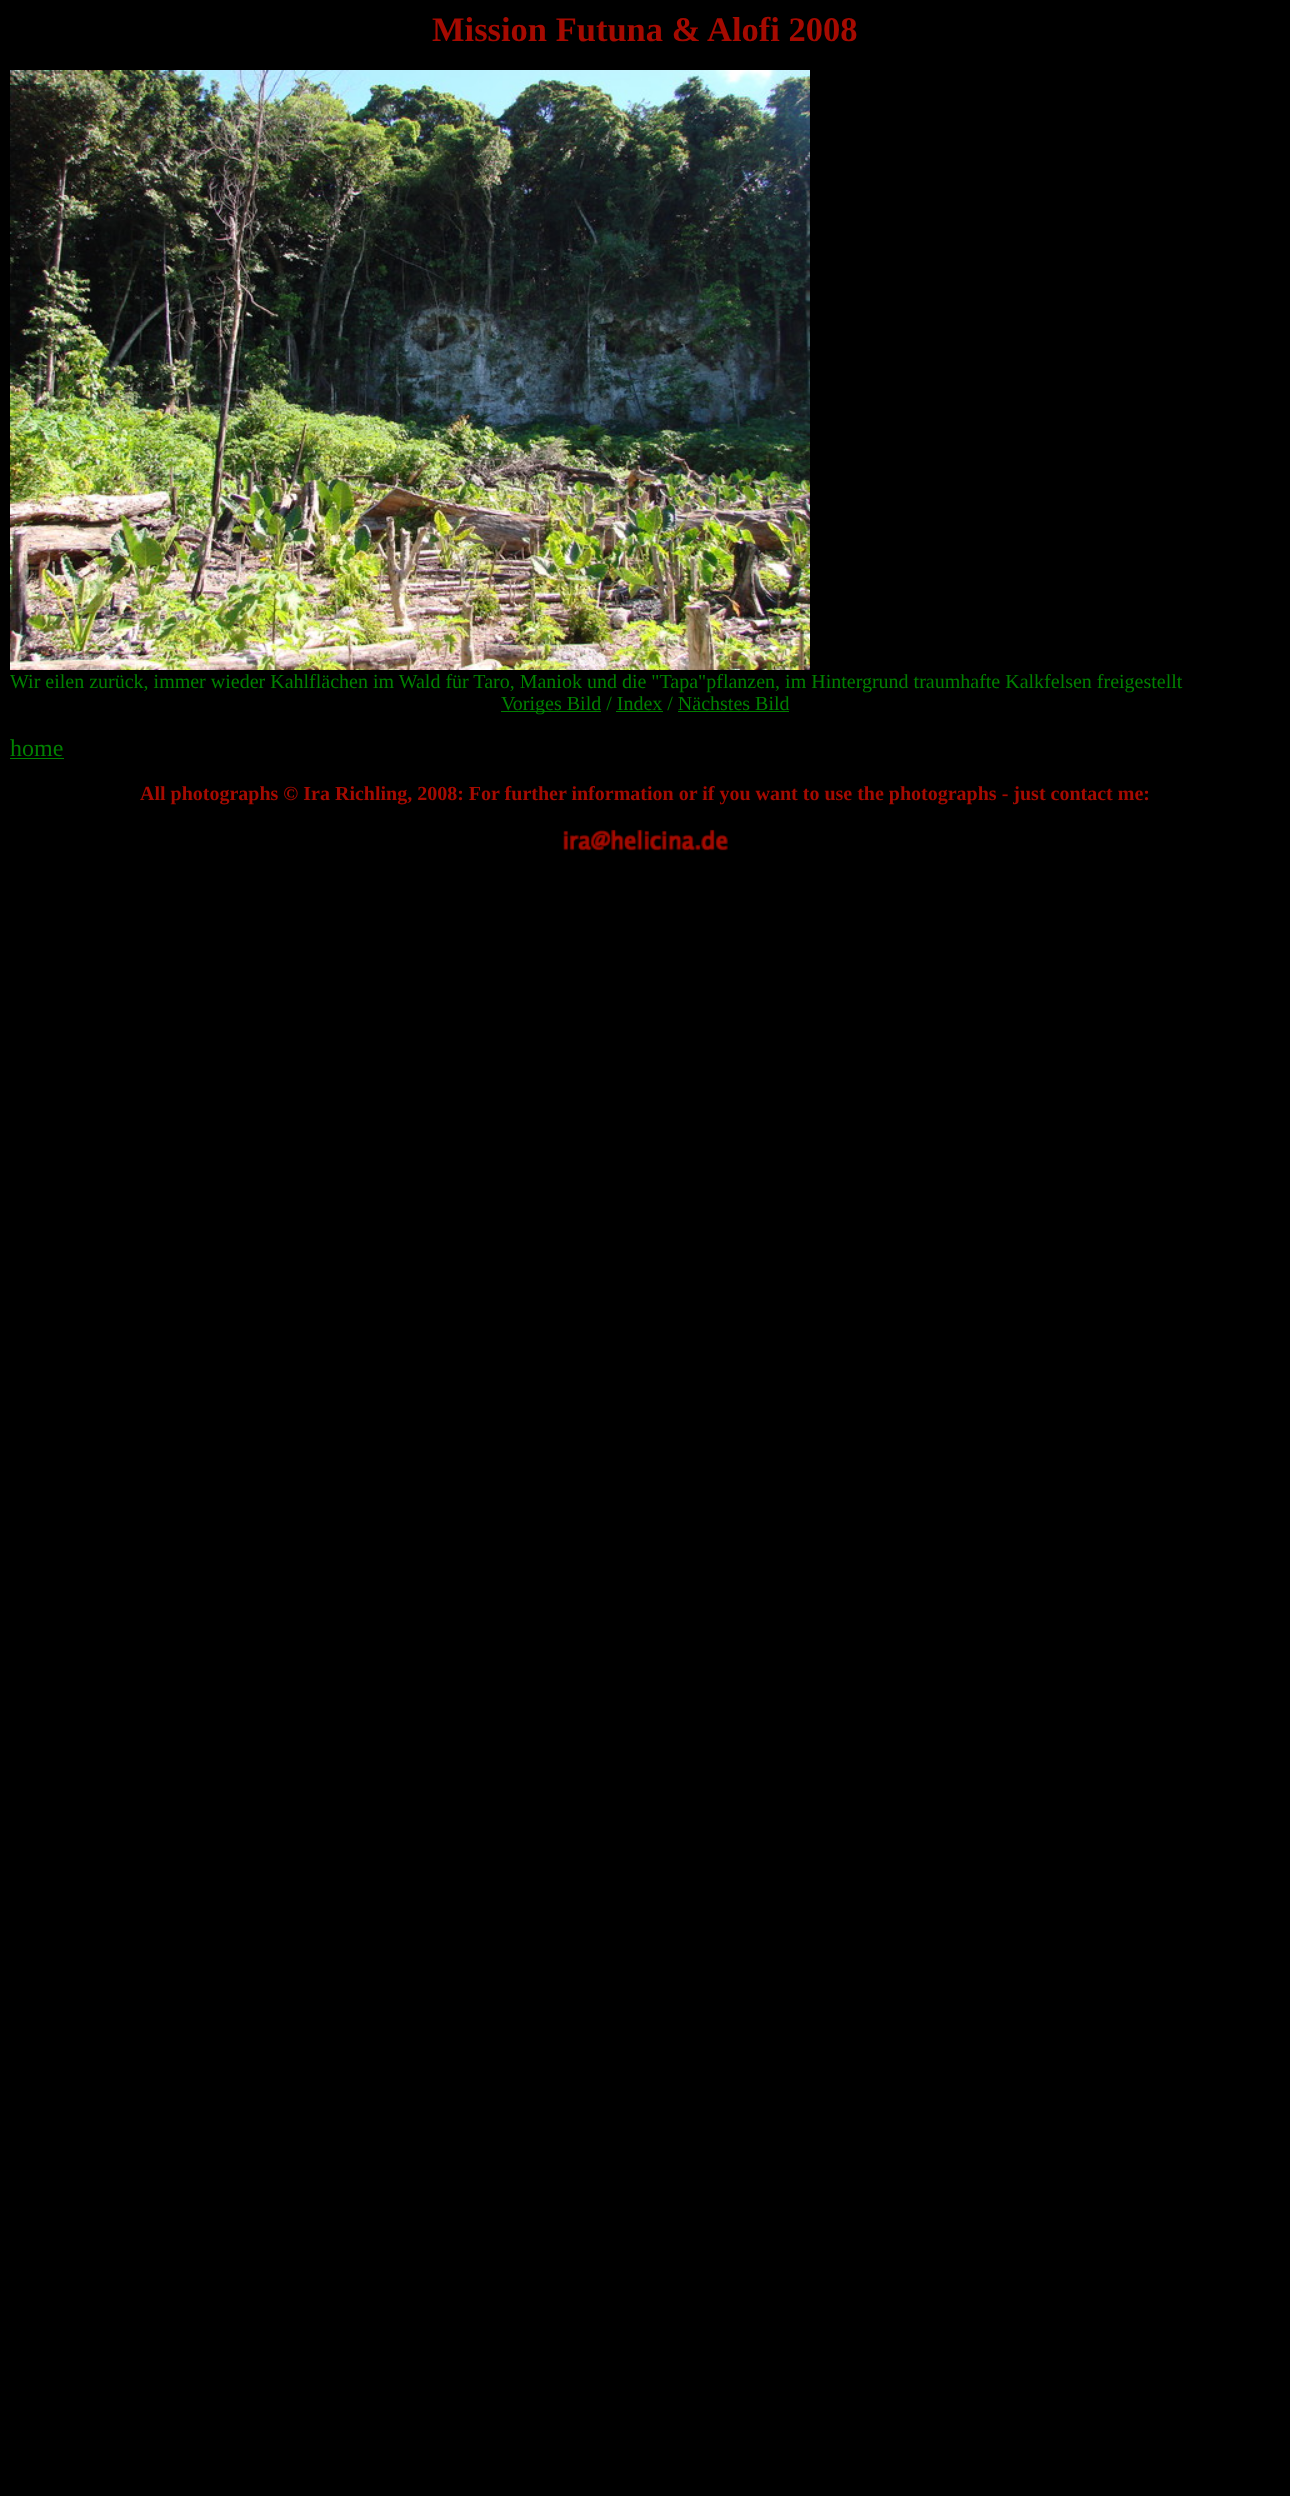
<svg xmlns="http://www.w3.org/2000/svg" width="1290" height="2496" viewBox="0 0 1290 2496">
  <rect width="100%" height="100%" fill="#000000"/>
  <text x="432" y="41" font-family="Liberation Serif" font-size="34.5" font-weight="bold" fill="#a50a00">Mission Futuna &amp; Alofi 2008</text>
  <image x="10" y="70" width="800" height="600" href="img1.png"/>
  <text x="10" y="688" font-family="Liberation Serif" font-size="20" fill="#008000">Wir eilen zurück, immer wieder Kahlflächen im Wald für Taro, Maniok und die "Tapa"pflanzen, im Hintergrund traumhafte Kalkfelsen freigestellt</text>
  <rect x="501" y="711" width="100" height="1" fill="#008000"/>
  <text x="501" y="710" font-family="Liberation Serif" font-size="20" fill="#008000">Voriges Bild / Index / Nächstes Bild</text>
  <rect x="616" y="711" width="47" height="1" fill="#008000"/>
  <rect x="678" y="711" width="111" height="1" fill="#008000"/>
  <text x="10" y="756" font-family="Liberation Serif" font-size="24" fill="#008000">home</text>
  <rect x="10" y="758" width="54" height="1" fill="#008000"/>
  <text x="140" y="800" font-family="Liberation Serif" font-size="20" font-weight="bold" fill="#a50a00">All photographs © Ira Richling, 2008: For further information or if you want to use the photographs - just contact me:</text>
  <image x="563" y="829" width="165" height="22" href="img2.png"/>
</svg>
